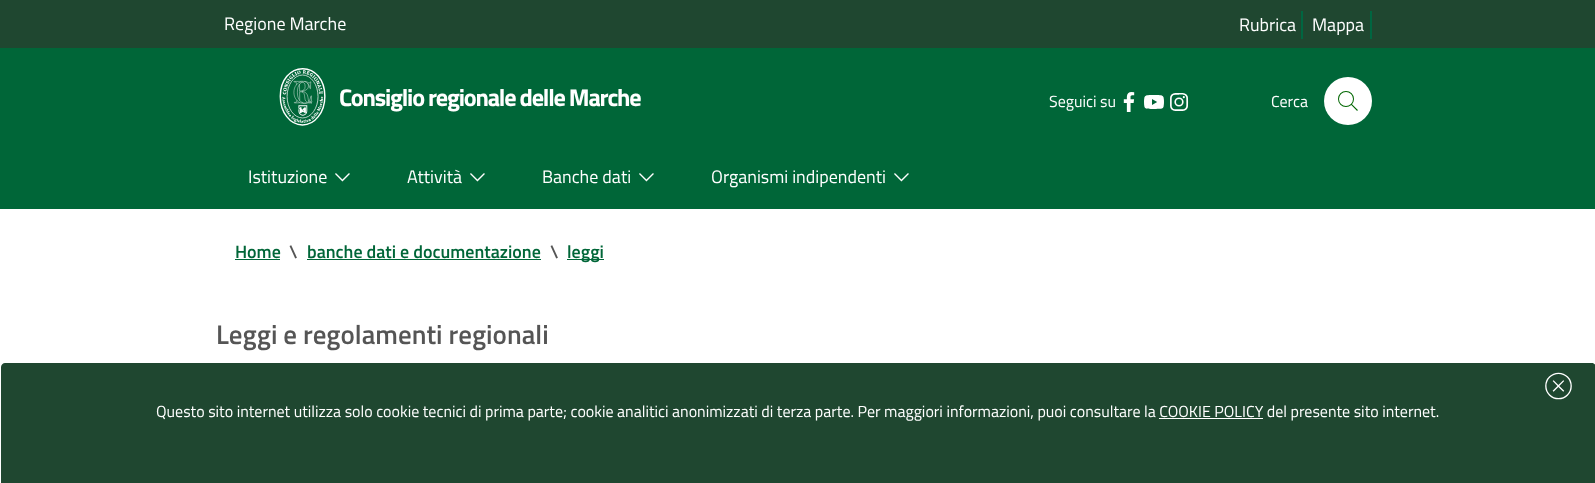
<svg xmlns="http://www.w3.org/2000/svg" width="1595" height="483" viewBox="0 0 1595 483">
  <rect width="100%" height="100%" fill="#ffffff"/>
  <rect x="0" y="0" width="1595" height="48" fill="#1f4730"/>
  <text x="224" y="30" font-family="Titillium Web" font-size="18" fill="#ffffff">Regione Marche</text>
  <rect x="1301" y="11" width="2" height="28" fill="#006641"/>
  <text x="1239" y="31" font-family="Titillium Web" font-size="18" fill="#ffffff">Rubrica</text>
  <rect x="1370" y="11" width="2" height="28" fill="#006641"/>
  <text x="1312" y="31" font-family="Titillium Web" font-size="18" fill="#ffffff">Mappa</text>
  <rect x="0" y="48" width="1595" height="161" fill="#006638"/>
  <image x="279" y="68" width="47" height="58" href="img1.png"/>
  <text x="339" y="106" font-family="Titillium Web" font-size="24.25" font-weight="bold" letter-spacing="-1.2" fill="#ffffff">Consiglio regionale delle Marche</text>
  <text x="1049" y="107" font-family="Titillium Web" font-size="16" fill="#ffffff">Seguici su</text>
  <image x="1123" y="92" width="12" height="20" href="img2.png"/>
  <image x="1144" y="95" width="20" height="14" href="img3.png"/>
  <image x="1170" y="93" width="19" height="18" href="img4.png"/>
  <text x="1271" y="107" font-family="Titillium Web" font-size="16" fill="#ffffff">Cerca</text>
  <circle cx="1348" cy="101" r="24" fill="#ffffff"/>
  <image x="1338" y="91" width="20" height="20" href="img5.png"/>
  <text x="248" y="183" font-family="Titillium Web" font-size="18" fill="#ffffff">Istituzione</text>
  <image x="335" y="173" width="15" height="9" href="img6.png"/>
  <text x="407" y="183" font-family="Titillium Web" font-size="18" fill="#ffffff">Attività</text>
  <image x="470" y="173" width="15" height="9" href="img6.png"/>
  <text x="542" y="183" font-family="Titillium Web" font-size="18" fill="#ffffff">Banche dati</text>
  <image x="639" y="173" width="15" height="9" href="img6.png"/>
  <text x="711" y="183" font-family="Titillium Web" font-size="18" fill="#ffffff">Organismi indipendenti</text>
  <image x="894" y="173" width="15" height="9" href="img6.png"/>
  <text x="235" y="258" font-family="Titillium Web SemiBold" font-size="18" font-weight="600" fill="#006638">Home</text>
  <rect x="235" y="259" width="45" height="1" fill="#006638"/>
  <text x="289" y="258" font-family="Titillium Web SemiBold" font-size="18" font-weight="600" fill="#555555">\</text>
  <text x="307" y="258" font-family="Titillium Web SemiBold" font-size="18" font-weight="600" fill="#006638">banche dati e documentazione</text>
  <rect x="307" y="259" width="234" height="1" fill="#006638"/>
  <text x="550" y="258" font-family="Titillium Web SemiBold" font-size="18" font-weight="600" fill="#555555">\</text>
  <rect x="567" y="259" width="37" height="1" fill="#006638"/>
  <text x="567" y="258" font-family="Titillium Web SemiBold" font-size="18" font-weight="600" fill="#006638">leggi</text>
  <text x="216" y="344" font-family="Titillium Web SemiBold" font-size="27" font-weight="600" fill="#555555">Leggi e regolamenti regionali</text>
  <path d="M5 363H1592C1594 363 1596 365 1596 367V483H1V367C1 365 3 363 5 363Z" fill="#1f4730"/>
  <image x="1545" y="372" width="27" height="28" href="img7.png"/>
  <text x="156" y="417" font-family="Titillium Web" font-size="16" fill="#ffffff">Questo sito internet utilizza solo cookie tecnici di prima parte; cookie analitici anonimizzati di terza parte. Per maggiori informazioni, puoi consultare la COOKIE POLICY del presente sito internet.</text>
  <rect x="1159" y="418" width="104" height="1" fill="#ffffff"/>
</svg>
